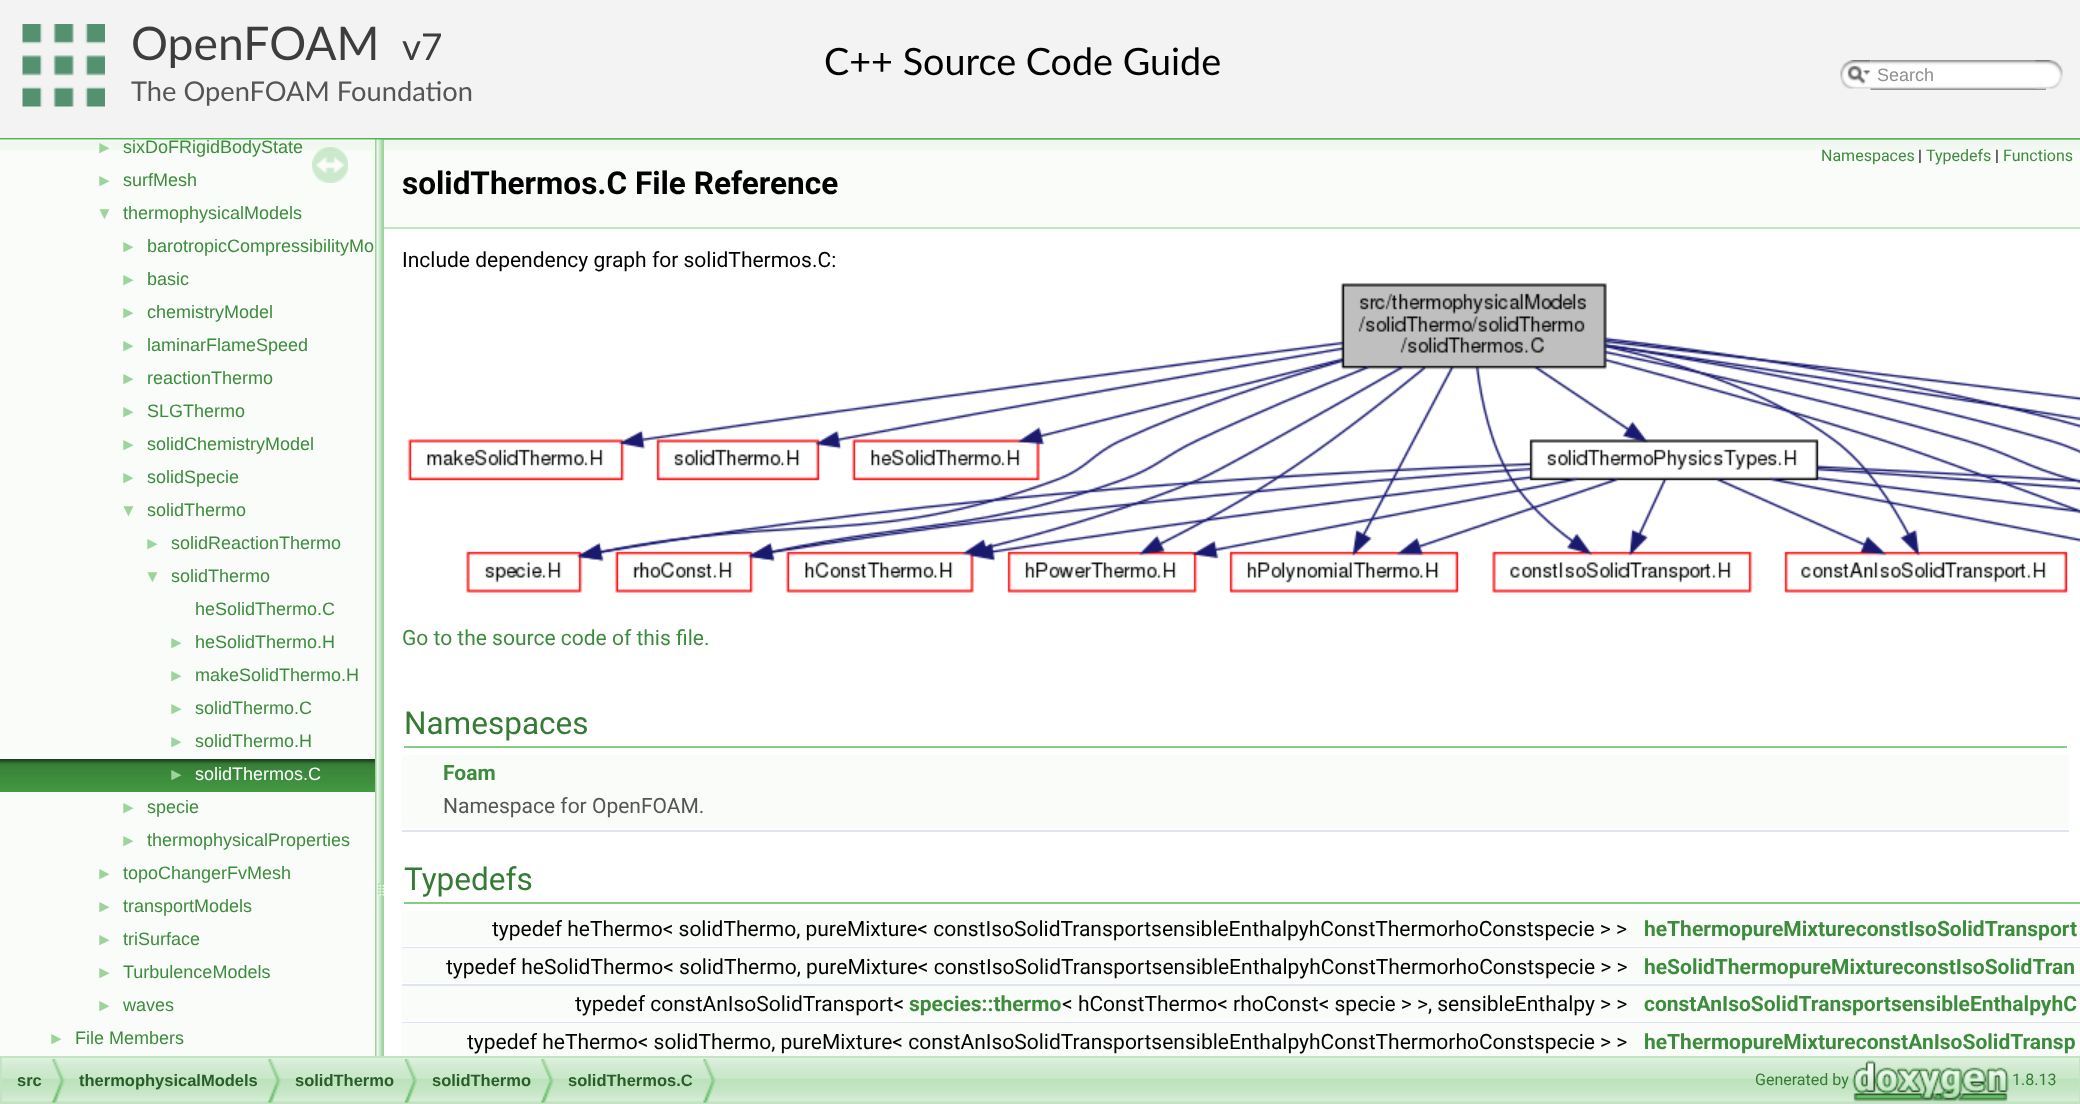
<svg xmlns="http://www.w3.org/2000/svg" width="2080" height="1104" viewBox="0 0 2080 1104">
  <rect width="100%" height="100%" fill="#ffffff"/>
  <rect x="0" y="0" width="2080" height="138" fill="#f3f3f3"/>
  <rect x="0" y="138" width="2080" height="2" fill="#53b453"/>
  <image x="22" y="24" width="83" height="83" href="img1.png"/>
  <text x="131" y="60" font-family="Lato" font-size="46.25" fill="#3d3d3d">OpenFOAM</text>
  <text x="402" y="60" font-family="Lato" font-size="37" fill="#3d3d3d">v7</text>
  <text x="131" y="101" font-family="Lato" font-size="27.25" fill="#555555">The OpenFOAM Foundation</text>
  <image x="1840" y="60" width="31" height="29" href="img2.png"/>
  <image x="1847" y="65" width="24" height="20" href="img3.png"/>
  <image x="1870" y="60" width="176" height="30" href="img4.png"/>
  <text x="1877" y="81" font-family="Liberation Sans" font-size="18" fill="#909090">Search</text>
  <image x="2035" y="60" width="28" height="29" href="img5.png"/>
  <text x="824" y="75" font-family="Lato" font-size="37.75" fill="#000000">C++ Source Code Guide</text>
  <rect x="0" y="151" width="375" height="905" fill="#f9fcf9"/>
  <image x="0" y="139" width="375" height="12" href="img6.png"/>
  <text x="96" y="153" font-family="Liberation Sans" font-size="17" fill="#9cd49c">►</text>
  <text x="123" y="153" font-family="Liberation Sans" font-size="18" fill="#3d8c3d">sixDoFRigidBodyState</text>
  <text x="96" y="186" font-family="Liberation Sans" font-size="17" fill="#9cd49c">►</text>
  <text x="123" y="186" font-family="Liberation Sans" font-size="18" fill="#3d8c3d">surfMesh</text>
  <text x="96" y="219" font-family="Liberation Sans" font-size="17" fill="#9cd49c">▼</text>
  <text x="123" y="219" font-family="Liberation Sans" font-size="18" fill="#3d8c3d">thermophysicalModels</text>
  <text x="120" y="252" font-family="Liberation Sans" font-size="17" fill="#9cd49c">►</text>
  <text x="147" y="252" font-family="Liberation Sans" font-size="18" fill="#3d8c3d">barotropicCompressibilityMo</text>
  <text x="120" y="285" font-family="Liberation Sans" font-size="17" fill="#9cd49c">►</text>
  <text x="147" y="285" font-family="Liberation Sans" font-size="18" fill="#3d8c3d">basic</text>
  <text x="120" y="318" font-family="Liberation Sans" font-size="17" fill="#9cd49c">►</text>
  <text x="147" y="318" font-family="Liberation Sans" font-size="18" fill="#3d8c3d">chemistryModel</text>
  <text x="120" y="351" font-family="Liberation Sans" font-size="17" fill="#9cd49c">►</text>
  <text x="147" y="351" font-family="Liberation Sans" font-size="18" fill="#3d8c3d">laminarFlameSpeed</text>
  <text x="120" y="384" font-family="Liberation Sans" font-size="17" fill="#9cd49c">►</text>
  <text x="147" y="384" font-family="Liberation Sans" font-size="18" fill="#3d8c3d">reactionThermo</text>
  <text x="120" y="417" font-family="Liberation Sans" font-size="17" fill="#9cd49c">►</text>
  <text x="147" y="417" font-family="Liberation Sans" font-size="18" fill="#3d8c3d">SLGThermo</text>
  <text x="120" y="450" font-family="Liberation Sans" font-size="17" fill="#9cd49c">►</text>
  <text x="147" y="450" font-family="Liberation Sans" font-size="18" fill="#3d8c3d">solidChemistryModel</text>
  <text x="120" y="483" font-family="Liberation Sans" font-size="17" fill="#9cd49c">►</text>
  <text x="147" y="483" font-family="Liberation Sans" font-size="18" fill="#3d8c3d">solidSpecie</text>
  <text x="120" y="516" font-family="Liberation Sans" font-size="17" fill="#9cd49c">▼</text>
  <text x="147" y="516" font-family="Liberation Sans" font-size="18" fill="#3d8c3d">solidThermo</text>
  <text x="144" y="549" font-family="Liberation Sans" font-size="17" fill="#9cd49c">►</text>
  <text x="171" y="549" font-family="Liberation Sans" font-size="18" fill="#3d8c3d">solidReactionThermo</text>
  <text x="144" y="582" font-family="Liberation Sans" font-size="17" fill="#9cd49c">▼</text>
  <text x="171" y="582" font-family="Liberation Sans" font-size="18" fill="#3d8c3d">solidThermo</text>
  <text x="195" y="615" font-family="Liberation Sans" font-size="18" fill="#3d8c3d">heSolidThermo.C</text>
  <text x="168" y="648" font-family="Liberation Sans" font-size="17" fill="#9cd49c">►</text>
  <text x="195" y="648" font-family="Liberation Sans" font-size="18" fill="#3d8c3d">heSolidThermo.H</text>
  <text x="168" y="681" font-family="Liberation Sans" font-size="17" fill="#9cd49c">►</text>
  <text x="195" y="681" font-family="Liberation Sans" font-size="18" fill="#3d8c3d">makeSolidThermo.H</text>
  <text x="168" y="714" font-family="Liberation Sans" font-size="17" fill="#9cd49c">►</text>
  <text x="195" y="714" font-family="Liberation Sans" font-size="18" fill="#3d8c3d">solidThermo.C</text>
  <text x="168" y="747" font-family="Liberation Sans" font-size="17" fill="#9cd49c">►</text>
  <text x="195" y="747" font-family="Liberation Sans" font-size="18" fill="#3d8c3d">solidThermo.H</text>
  <image x="0" y="759" width="375" height="33" href="img7.png"/>
  <text x="168" y="780" font-family="Liberation Sans" font-size="17" fill="#9cd49c">►</text>
  <text x="195" y="780" font-family="Liberation Sans" font-size="18" fill="#ffffff">solidThermos.C</text>
  <text x="120" y="813" font-family="Liberation Sans" font-size="17" fill="#9cd49c">►</text>
  <text x="147" y="813" font-family="Liberation Sans" font-size="18" fill="#3d8c3d">specie</text>
  <text x="120" y="846" font-family="Liberation Sans" font-size="17" fill="#9cd49c">►</text>
  <text x="147" y="846" font-family="Liberation Sans" font-size="18" fill="#3d8c3d">thermophysicalProperties</text>
  <text x="96" y="879" font-family="Liberation Sans" font-size="17" fill="#9cd49c">►</text>
  <text x="123" y="879" font-family="Liberation Sans" font-size="18" fill="#3d8c3d">topoChangerFvMesh</text>
  <text x="96" y="912" font-family="Liberation Sans" font-size="17" fill="#9cd49c">►</text>
  <text x="123" y="912" font-family="Liberation Sans" font-size="18" fill="#3d8c3d">transportModels</text>
  <text x="96" y="945" font-family="Liberation Sans" font-size="17" fill="#9cd49c">►</text>
  <text x="123" y="945" font-family="Liberation Sans" font-size="18" fill="#3d8c3d">triSurface</text>
  <text x="96" y="978" font-family="Liberation Sans" font-size="17" fill="#9cd49c">►</text>
  <text x="123" y="978" font-family="Liberation Sans" font-size="18" fill="#3d8c3d">TurbulenceModels</text>
  <text x="96" y="1011" font-family="Liberation Sans" font-size="17" fill="#9cd49c">►</text>
  <text x="123" y="1011" font-family="Liberation Sans" font-size="18" fill="#3d8c3d">waves</text>
  <text x="48" y="1044" font-family="Liberation Sans" font-size="17" fill="#9cd49c">►</text>
  <text x="75" y="1044" font-family="Liberation Sans" font-size="18" fill="#3d8c3d">File Members</text>
  <image x="312" y="147" width="36" height="36" href="img8.png"/>
  <image x="375" y="139" width="9" height="917" href="img9.png"/>
  <rect x="384" y="151" width="1696" height="76" fill="#f9fcf9"/>
  <image x="384" y="139" width="1696" height="12" href="img10.png"/>
  <rect x="384" y="227" width="1696" height="2" fill="#c4e5c4"/>
  <text x="1821" y="161" font-family="Roboto" font-size="16" fill="#3d8c3d">Namespaces</text>
  <text x="1918" y="161" font-family="Roboto" font-size="16" fill="#000000">|</text>
  <text x="1926" y="161" font-family="Roboto" font-size="16" fill="#3d8c3d">Typedefs</text>
  <text x="1995" y="161" font-family="Roboto" font-size="16" fill="#000000">|</text>
  <text x="2003" y="161" font-family="Roboto" font-size="16" fill="#3d8c3d">Functions</text>
  <text x="402" y="194" font-family="Roboto" font-size="31.5" font-weight="bold" fill="#000000">solidThermos.C File Reference</text>
  <text x="402" y="267" font-family="Roboto" font-size="21" fill="#000000">Include dependency graph for solidThermos.C:</text>
  <image x="407" y="283" width="1673" height="310" href="img11.png"/>
  <text x="402" y="645" font-family="Roboto" font-size="21" fill="#3d8c3d">Go to the source code of this file.</text>
  <rect x="404" y="746" width="1663" height="2" fill="#87cb87"/>
  <text x="404" y="734" font-family="Roboto" font-size="31.5" fill="#357b35">Namespaces</text>
  <rect x="402" y="755" width="1667" height="34" fill="#f9fcf9"/>
  <text x="443" y="780" font-family="Roboto" font-size="21" font-weight="bold" fill="#3d8c3d">Foam</text>
  <rect x="402" y="789" width="1667" height="39" fill="#f9fcf9"/>
  <text x="443" y="813" font-family="Roboto" font-size="21" fill="#555555">Namespace for OpenFOAM.</text>
  <rect x="402" y="830" width="1667" height="2" fill="#dee4f0"/>
  <rect x="404" y="902" width="1676" height="2" fill="#87cb87"/>
  <text x="404" y="890" font-family="Roboto" font-size="31.5" fill="#357b35">Typedefs</text>
  <rect x="402" y="911" width="1678" height="34" fill="#f9fcf9"/>
  <text x="492" y="936" font-family="Roboto" font-size="21" fill="#000000">typedef heThermo&lt; solidThermo, pureMixture&lt; constIsoSolidTransportsensibleEnthalpyhConstThermorhoConstspecie &gt; &gt;</text>
  <text x="1644" y="936" font-family="Roboto" font-size="21" font-weight="bold" fill="#3d8c3d">heThermopureMixtureconstIsoSolidTransport</text>
  <rect x="402" y="947" width="1678" height="1" fill="#dee4f0"/>
  <rect x="402" y="948" width="1678" height="35" fill="#f9fcf9"/>
  <text x="446" y="974" font-family="Roboto" font-size="21" fill="#000000">typedef heSolidThermo&lt; solidThermo, pureMixture&lt; constIsoSolidTransportsensibleEnthalpyhConstThermorhoConstspecie &gt; &gt;</text>
  <text x="1644" y="974" font-family="Roboto" font-size="21" font-weight="bold" fill="#3d8c3d">heSolidThermopureMixtureconstIsoSolidTran</text>
  <rect x="402" y="984" width="1678" height="2" fill="#dee4f0"/>
  <rect x="402" y="986" width="1678" height="34" fill="#f9fcf9"/>
  <text x="575" y="1011" font-family="Roboto" font-size="21" fill="#000000">typedef constAnIsoSolidTransport&lt;</text>
  <text x="909" y="1011" font-family="Roboto" font-size="21" font-weight="bold" fill="#3d8c3d">species::thermo</text>
  <text x="1062" y="1011" font-family="Roboto" font-size="21" fill="#000000">&lt; hConstThermo&lt; rhoConst&lt; specie &gt; &gt;, sensibleEnthalpy &gt; &gt;</text>
  <text x="1644" y="1011" font-family="Roboto" font-size="21" font-weight="bold" fill="#3d8c3d">constAnIsoSolidTransportsensibleEnthalpyhC</text>
  <rect x="402" y="1022" width="1678" height="1" fill="#dee4f0"/>
  <rect x="402" y="1023" width="1678" height="33" fill="#f9fcf9"/>
  <text x="467" y="1049" font-family="Roboto" font-size="21" fill="#000000">typedef heThermo&lt; solidThermo, pureMixture&lt; constAnIsoSolidTransportsensibleEnthalpyhConstThermorhoConstspecie &gt; &gt;</text>
  <text x="1644" y="1049" font-family="Roboto" font-size="21" font-weight="bold" fill="#3d8c3d">heThermopureMixtureconstAnIsoSolidTransp</text>
  <image x="2" y="1058" width="2077" height="44" href="img12.png"/>
  <rect x="1" y="1057" width="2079" height="46" fill="none" stroke="#c2e4c2" stroke-width="2"/>
  <image x="52" y="1059" width="13" height="44" href="img13.png"/>
  <text x="17" y="1086" font-family="Liberation Sans" font-size="16.5" font-weight="bold" fill="#285d28">src</text>
  <image x="268" y="1059" width="13" height="44" href="img13.png"/>
  <text x="79" y="1086" font-family="Liberation Sans" font-size="16.5" font-weight="bold" fill="#285d28">thermophysicalModels</text>
  <image x="405" y="1059" width="12" height="44" href="img14.png"/>
  <text x="295" y="1086" font-family="Liberation Sans" font-size="16.5" font-weight="bold" fill="#285d28">solidThermo</text>
  <image x="541" y="1059" width="13" height="44" href="img15.png"/>
  <text x="432" y="1086" font-family="Liberation Sans" font-size="16.5" font-weight="bold" fill="#285d28">solidThermo</text>
  <image x="703" y="1059" width="13" height="44" href="img15.png"/>
  <text x="568" y="1086" font-family="Liberation Sans" font-size="16.5" font-weight="bold" fill="#285d28">solidThermos.C</text>
  <text x="1755" y="1085" font-family="Roboto" font-size="16" fill="#357b35">Generated by</text>
  <image x="1852" y="1060" width="157" height="42" href="img16.png"/>
  <text x="2012" y="1085" font-family="Roboto" font-size="16" fill="#357b35">1.8.13</text>
</svg>
